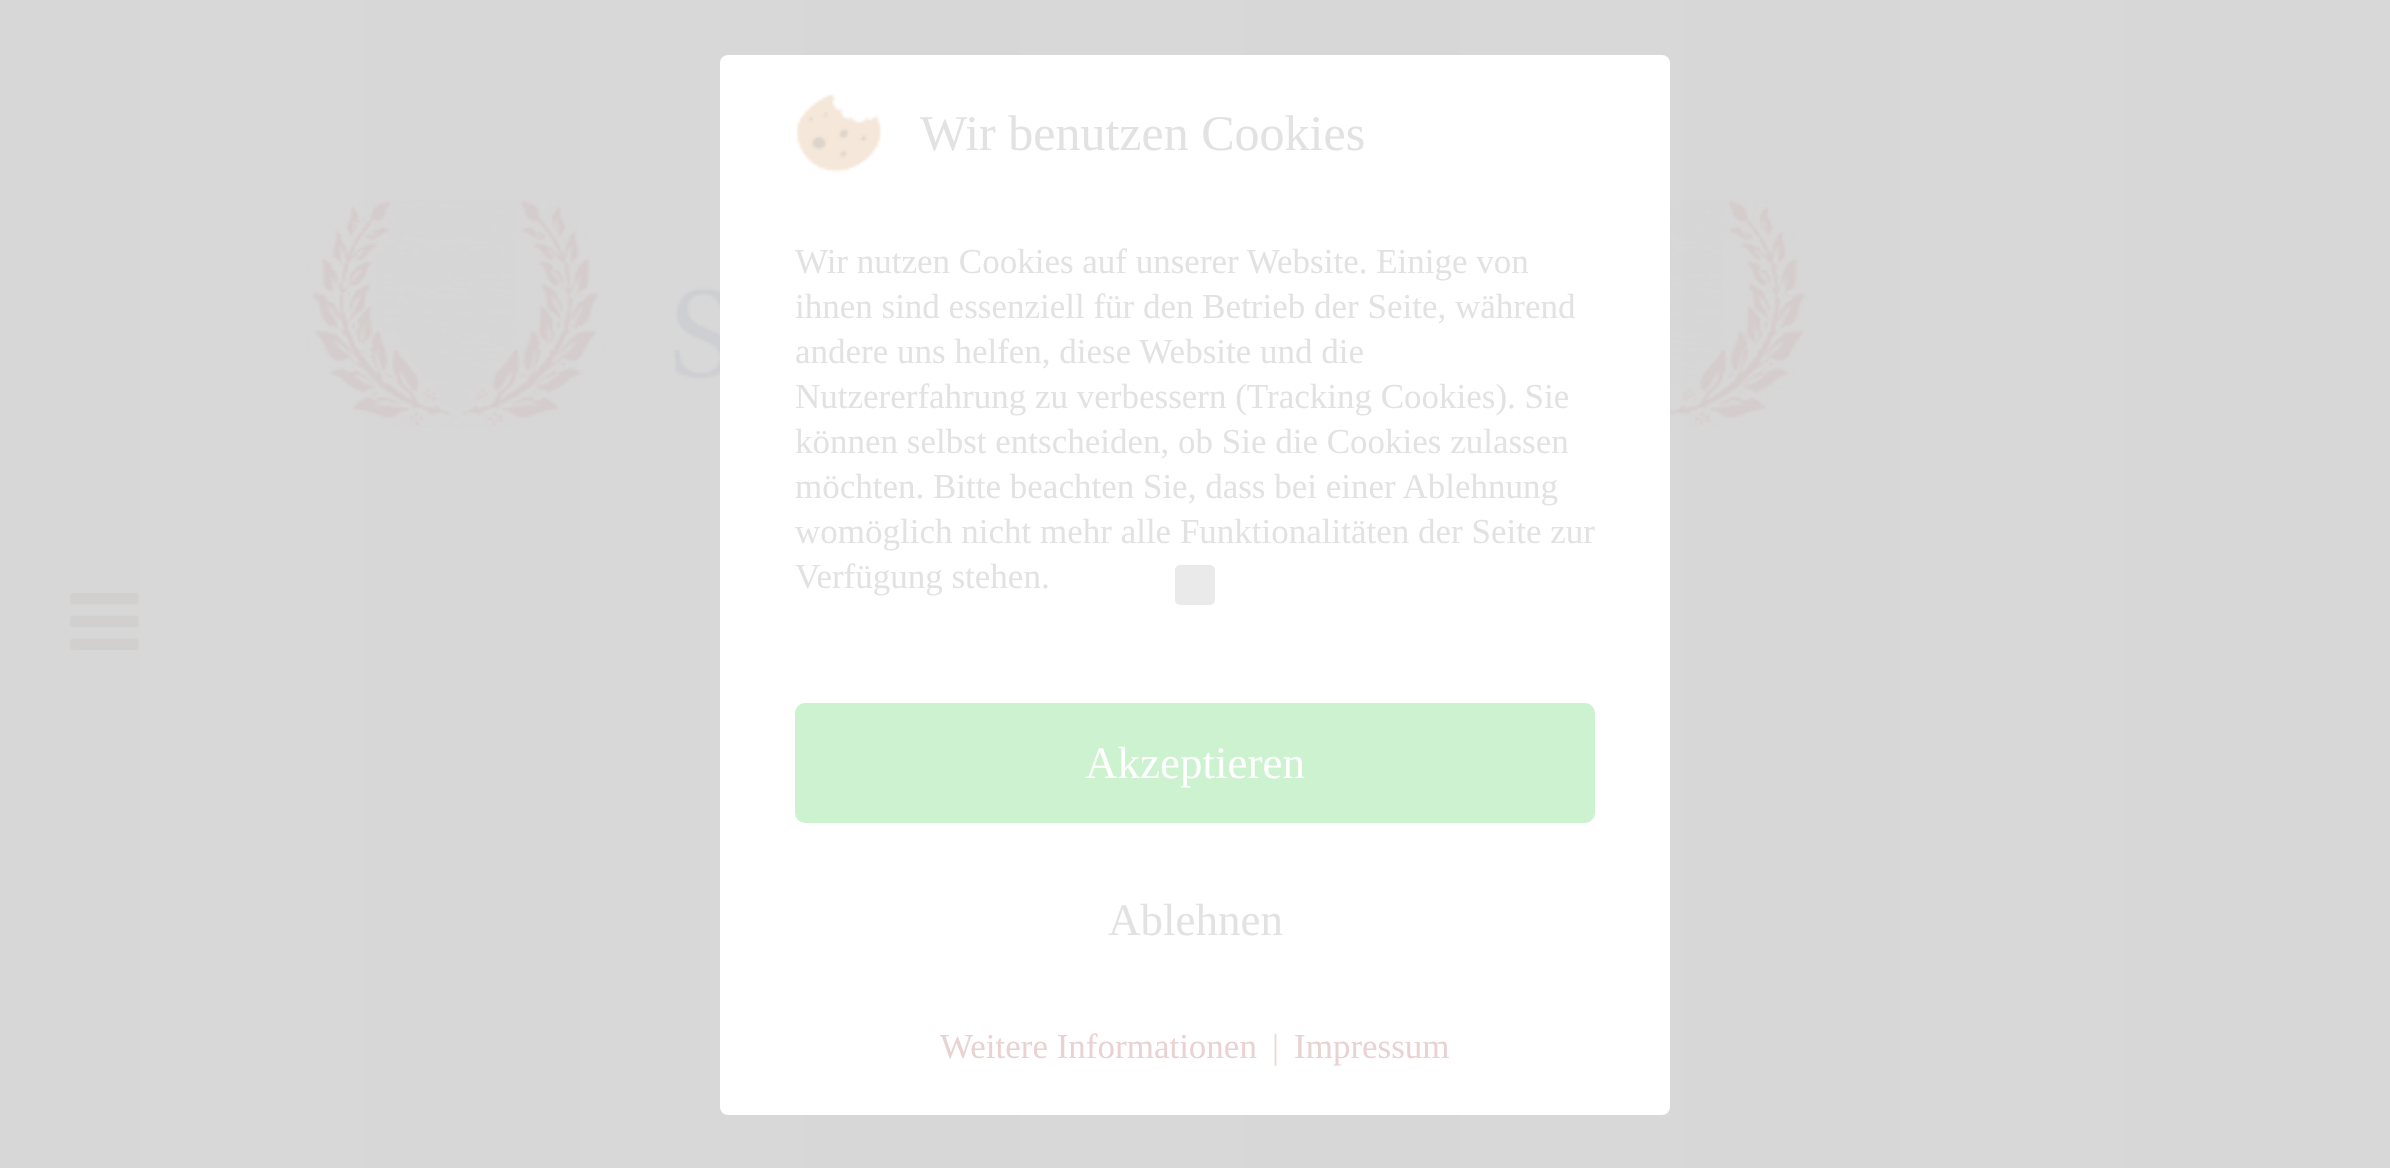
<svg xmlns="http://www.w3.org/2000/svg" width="2390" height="1168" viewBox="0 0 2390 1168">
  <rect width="100%" height="100%" fill="#ffffff"/>
  <image x="0" y="0" width="2390" height="1168" href="img1.png"/>
  <image x="306" y="199" width="1502" height="229" href="img2.png"/>
  <image x="70" y="592" width="69" height="58" href="img3.png"/>
  <rect x="720" y="55" width="950" height="1060" rx="8" fill="#ffffff"/>
  <image x="795" y="92" width="88" height="81" href="img4.png"/>
  <text x="920" y="150" font-family="Liberation Serif" font-size="50" fill="#e2e2e2">Wir benutzen Cookies</text>
  <text x="795" y="273" font-family="Liberation Serif" font-size="35" fill="#e2e2e2">Wir nutzen Cookies auf unserer Website. Einige von</text>
  <text x="795" y="318" font-family="Liberation Serif" font-size="35" fill="#e2e2e2">ihnen sind essenziell für den Betrieb der Seite, während</text>
  <text x="795" y="363" font-family="Liberation Serif" font-size="35" fill="#e2e2e2">andere uns helfen, diese Website und die</text>
  <text x="795" y="408" font-family="Liberation Serif" font-size="35" fill="#e2e2e2">Nutzererfahrung zu verbessern (Tracking Cookies). Sie</text>
  <text x="795" y="453" font-family="Liberation Serif" font-size="35" fill="#e2e2e2">können selbst entscheiden, ob Sie die Cookies zulassen</text>
  <text x="795" y="498" font-family="Liberation Serif" font-size="35" fill="#e2e2e2">möchten. Bitte beachten Sie, dass bei einer Ablehnung</text>
  <text x="795" y="543" font-family="Liberation Serif" font-size="35" fill="#e2e2e2">womöglich nicht mehr alle Funktionalitäten der Seite zur</text>
  <text x="795" y="588" font-family="Liberation Serif" font-size="35" fill="#e2e2e2">Verfügung stehen.</text>
  <rect x="795" y="703" width="800" height="120" rx="10" fill="#ccf2d0"/>
  <text x="1085" y="778" font-family="Liberation Serif" font-size="45" fill="#ffffff">Akzeptieren</text>
  <text x="1108" y="935" font-family="Liberation Serif" font-size="45" fill="#e2e2e2">Ablehnen</text>
  <text x="940" y="1058" font-family="Liberation Serif" font-size="35" fill="#e9d2d2">Weitere Informationen</text>
  <text x="1272" y="1058" font-family="Liberation Serif" font-size="35" fill="#e3dcd8">|</text>
  <text x="1294" y="1058" font-family="Liberation Serif" font-size="35" fill="#e9d2d2">Impressum</text>
  <rect x="1175" y="565" width="40" height="40" rx="5" fill="#eaeaea"/>
</svg>
